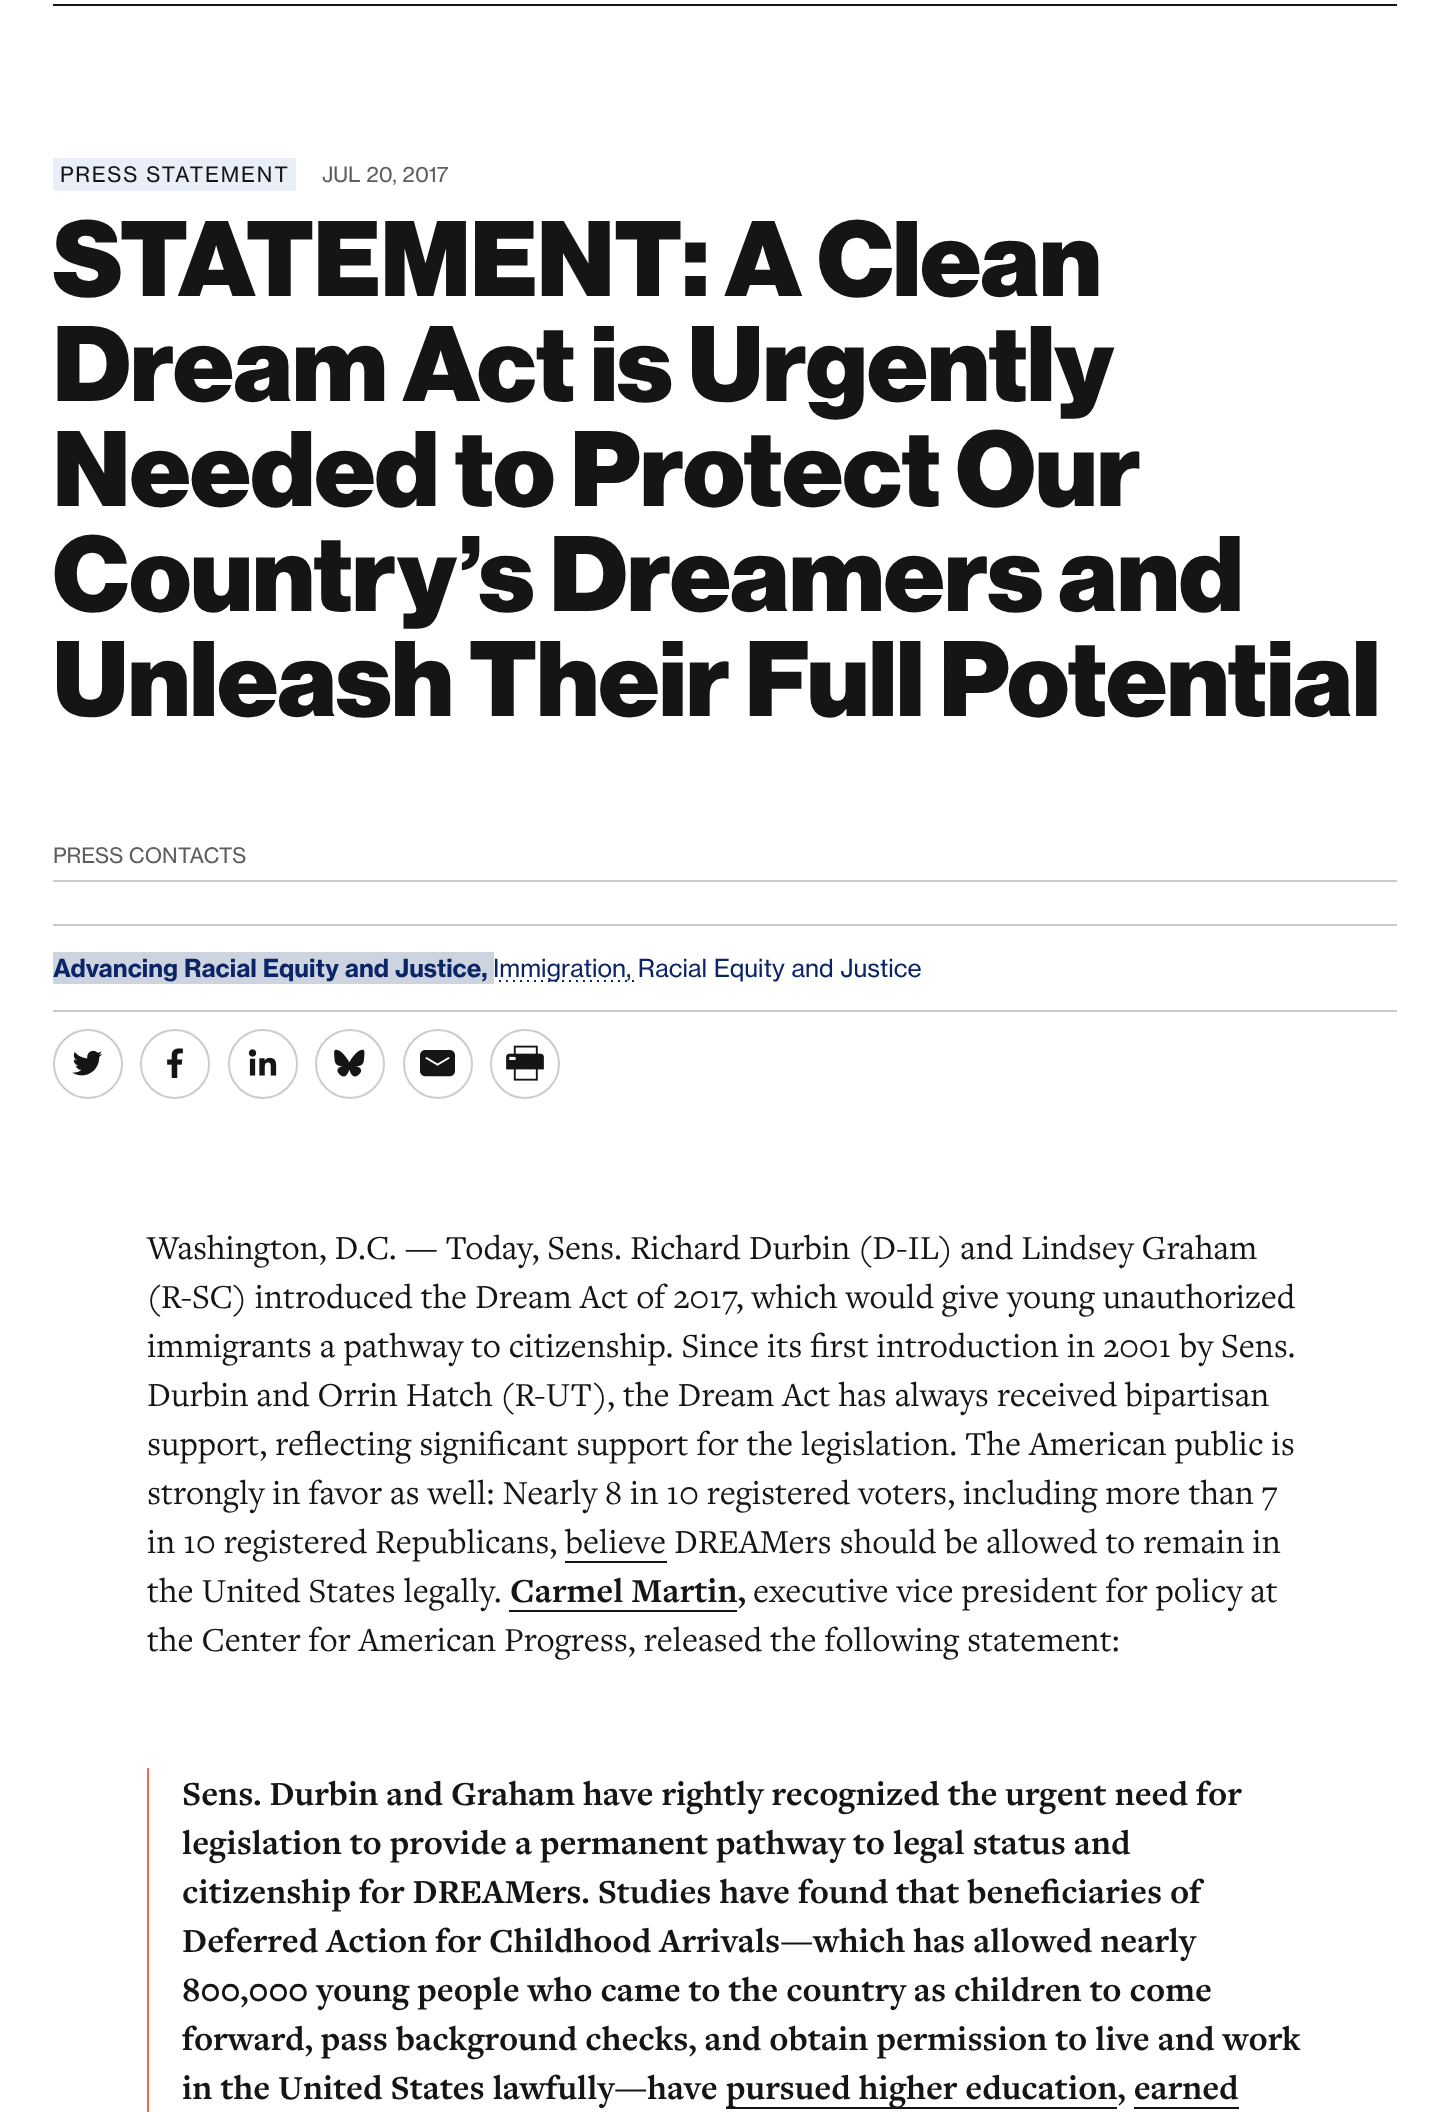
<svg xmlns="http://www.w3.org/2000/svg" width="1448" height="2112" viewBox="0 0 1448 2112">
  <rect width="100%" height="100%" fill="#ffffff"/>
  <rect x="53" y="4" width="1344" height="2" fill="#151515"/>
  <rect x="53" y="158" width="243" height="33" fill="#eaeef8"/>
  <text x="60" y="182" font-family="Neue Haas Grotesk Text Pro" font-size="21" letter-spacing="1.75" fill="#151515">PRESS STATEMENT</text>
  <text x="322" y="182" font-family="Neue Haas Grotesk Text Pro" font-size="21" fill="#5e5e5e">JUL 20, 2017</text>
  <text x="53" y="296" font-family="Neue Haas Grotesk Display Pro" font-size="105" font-weight="900" fill="#151515">STATEMENT: A Clean</text>
  <text x="53" y="401" font-family="Neue Haas Grotesk Display Pro" font-size="105" font-weight="900" fill="#151515">Dream Act is Urgently</text>
  <text x="53" y="506" font-family="Neue Haas Grotesk Display Pro" font-size="105" font-weight="900" fill="#151515">Needed to Protect Our</text>
  <text x="53" y="611" font-family="Neue Haas Grotesk Display Pro" font-size="105" font-weight="900" fill="#151515">Country’s Dreamers and</text>
  <text x="53" y="716" font-family="Neue Haas Grotesk Display Pro" font-size="105" font-weight="900" fill="#151515">Unleash Their Full Potential</text>
  <rect x="53" y="880" width="1344" height="2" fill="#cccccc"/>
  <text x="53" y="863" font-family="Neue Haas Grotesk Text Pro" font-size="21" fill="#5e5e5e">PRESS CONTACTS</text>
  <rect x="53" y="924" width="1344" height="2" fill="#cccccc"/>
  <rect x="53" y="952" width="441" height="32" fill="#ced3e0"/>
  <text x="53" y="977" font-family="Neue Haas Grotesk Text Pro" font-size="24.5" font-weight="bold" fill="#0b2466">Advancing Racial Equity and Justice,</text>
  <image x="499" y="980" width="135" height="2" href="img1.png"/>
  <text x="493" y="977" font-family="Neue Haas Grotesk Text Pro" font-size="24.5" fill="#0b2466">Immigration, Racial Equity and Justice</text>
  <rect x="53" y="1010" width="1344" height="2" fill="#cccccc"/>
  <circle cx="88" cy="1064" r="34" fill="none" stroke="#cccccc" stroke-width="2"/>
  <image x="72" y="1050" width="31" height="26" href="img2.png"/>
  <circle cx="175" cy="1064" r="34" fill="none" stroke="#cccccc" stroke-width="2"/>
  <image x="167" y="1048" width="16" height="30" href="img3.png"/>
  <circle cx="263" cy="1064" r="34" fill="none" stroke="#cccccc" stroke-width="2"/>
  <image x="248" y="1049" width="29" height="27" href="img4.png"/>
  <circle cx="350" cy="1064" r="34" fill="none" stroke="#cccccc" stroke-width="2"/>
  <image x="334" y="1049" width="31" height="28" href="img5.png"/>
  <circle cx="438" cy="1064" r="34" fill="none" stroke="#cccccc" stroke-width="2"/>
  <image x="420" y="1050" width="35" height="27" href="img6.png"/>
  <circle cx="525" cy="1064" r="34" fill="none" stroke="#cccccc" stroke-width="2"/>
  <image x="506" y="1045" width="38" height="36" href="img7.png"/>
  <text x="147" y="1259" font-family="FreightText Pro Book" font-size="35" fill="#151515">Washington, D.C. — Today, Sens. Richard Durbin (D-IL) and Lindsey Graham</text>
  <text x="147" y="1308" font-family="FreightText Pro Book" font-size="35" fill="#151515">(R-SC) introduced the Dream Act of 2017, which would give young unauthorized</text>
  <text x="147" y="1357" font-family="FreightText Pro Book" font-size="35" fill="#151515">immigrants a pathway to citizenship. Since its first introduction in 2001 by Sens.</text>
  <text x="147" y="1406" font-family="FreightText Pro Book" font-size="35" fill="#151515">Durbin and Orrin Hatch (R-UT), the Dream Act has always received bipartisan</text>
  <text x="147" y="1455" font-family="FreightText Pro Book" font-size="35" fill="#151515">support, reflecting significant support for the legislation. The American public is</text>
  <text x="147" y="1504" font-family="FreightText Pro Book" font-size="35" fill="#151515">strongly in favor as well: Nearly 8 in 10 registered voters, including more than 7</text>
  <text x="147" y="1553" font-family="FreightText Pro Book" font-size="35" fill="#151515">in 10 registered Republicans, believe DREAMers should be allowed to remain in</text>
  <rect x="565" y="1561" width="102" height="2" fill="#151515"/>
  <text x="147" y="1602" font-family="FreightText Pro Book" font-size="35" fill="#151515">the United States legally.</text>
  <text x="510" y="1602" font-family="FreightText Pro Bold" font-size="35" font-weight="bold" fill="#151515">Carmel Martin,</text>
  <rect x="509" y="1610" width="228" height="2" fill="#151515"/>
  <text x="753" y="1602" font-family="FreightText Pro Book" font-size="35" fill="#151515">executive vice president for policy at</text>
  <text x="147" y="1651" font-family="FreightText Pro Book" font-size="35" fill="#151515">the Center for American Progress, released the following statement:</text>
  <rect x="147" y="1768" width="2" height="344" fill="#fa6457"/>
  <text x="182" y="1805" font-family="FreightText Pro Bold" font-size="35" font-weight="bold" fill="#151515">Sens. Durbin and Graham have rightly recognized the urgent need for</text>
  <text x="182" y="1854" font-family="FreightText Pro Bold" font-size="35" font-weight="bold" fill="#151515">legislation to provide a permanent pathway to legal status and</text>
  <text x="182" y="1903" font-family="FreightText Pro Bold" font-size="35" font-weight="bold" fill="#151515">citizenship for DREAMers. Studies have found that beneficiaries of</text>
  <text x="182" y="1952" font-family="FreightText Pro Bold" font-size="35" font-weight="bold" fill="#151515">Deferred Action for Childhood Arrivals—which has allowed nearly</text>
  <text x="182" y="2001" font-family="FreightText Pro Bold" font-size="35" font-weight="bold" fill="#151515">800,000 young people who came to the country as children to come</text>
  <text x="182" y="2050" font-family="FreightText Pro Bold" font-size="35" font-weight="bold" fill="#151515">forward, pass background checks, and obtain permission to live and work</text>
  <text x="182" y="2099" font-family="FreightText Pro Bold" font-size="35" font-weight="bold" fill="#151515">in the United States lawfully—have</text>
  <rect x="726" y="2107" width="391" height="2" fill="#151515"/>
  <text x="726" y="2099" font-family="FreightText Pro Bold" font-size="35" font-weight="bold" fill="#151515">pursued higher education, earned</text>
  <rect x="1134" y="2107" width="105" height="2" fill="#151515"/>
</svg>
